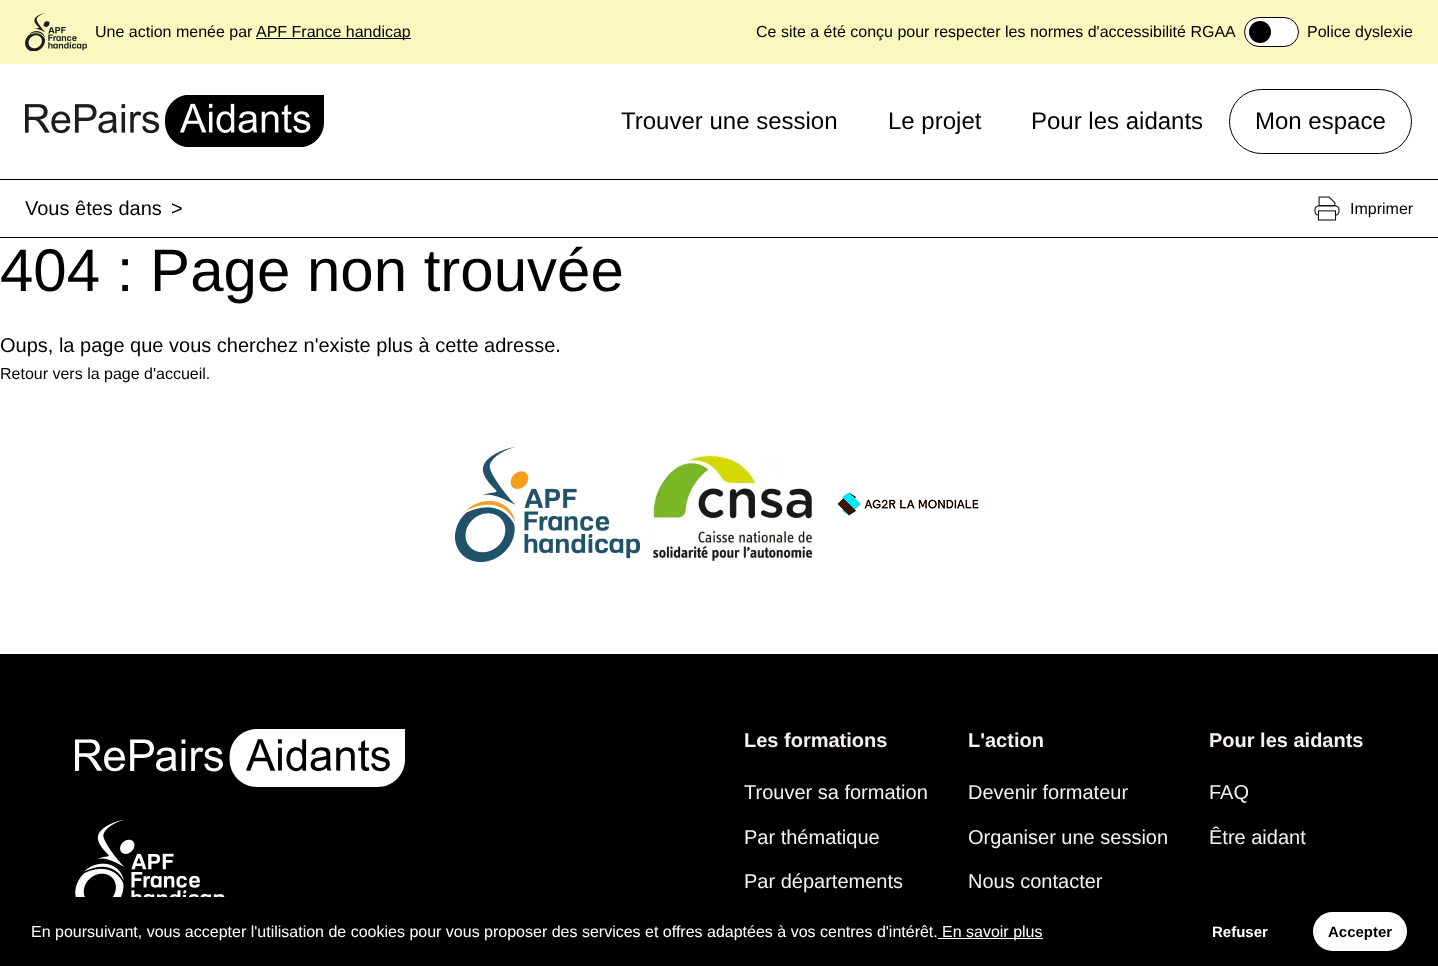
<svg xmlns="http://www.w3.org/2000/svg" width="1438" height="966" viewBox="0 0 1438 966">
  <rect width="100%" height="100%" fill="#ffffff"/>
  <rect x="0" y="0" width="1438" height="64" fill="#f8f8bf"/>
  <image x="25" y="13" width="62" height="38" href="img1.png"/>
  <text x="95" y="37" font-family="Liberation Sans" font-size="16" fill="#000000">Une action menée par</text>
  <rect x="256" y="38" width="155" height="1" fill="#000000"/>
  <text x="256" y="37" font-family="Liberation Sans" font-size="16" fill="#000000">APF France handicap</text>
  <text x="756" y="37" font-family="Liberation Sans" font-size="16" fill="#000000">Ce site a été conçu pour respecter les normes d'accessibilité RGAA</text>
  <rect x="1244.5" y="17.5" width="54" height="29" rx="14.5" fill="#ffffff" stroke="#000000"/>
  <circle cx="1260" cy="32" r="11" fill="#000000"/>
  <text x="1307" y="37" font-family="Liberation Sans" font-size="16" fill="#000000">Police dyslexie</text>
  <rect x="0" y="179" width="1438" height="1" fill="#000000"/>
  <image x="25" y="95" width="299" height="52" href="img2.png"/>
  <text x="621" y="129" font-family="Liberation Sans" font-size="24" fill="#000000">Trouver une session</text>
  <text x="888" y="129" font-family="Liberation Sans" font-size="24" fill="#000000">Le projet</text>
  <text x="1031" y="129" font-family="Liberation Sans" font-size="24" fill="#000000">Pour les aidants</text>
  <rect x="1229.5" y="89.5" width="182" height="64" rx="32" fill="none" stroke="#000000"/>
  <text x="1255" y="129" font-family="Liberation Sans" font-size="24" fill="#000000">Mon espace</text>
  <rect x="0" y="237" width="1438" height="1" fill="#000000"/>
  <text x="25" y="215" font-family="Liberation Sans" font-size="20" fill="#000000">Vous êtes dans</text>
  <text x="171" y="215" font-family="Liberation Sans" font-size="20" fill="#000000">&gt;</text>
  <image x="1314" y="196" width="26" height="25" href="img3.png"/>
  <text x="1350" y="214" font-family="Liberation Sans" font-size="16" fill="#000000">Imprimer</text>
  <text x="0" y="291" font-family="Liberation Sans" font-size="60" fill="#000000">404 : Page non trouvée</text>
  <text x="0" y="352" font-family="Liberation Sans" font-size="20" fill="#000000">Oups, la page que vous cherchez n'existe plus à cette adresse.</text>
  <text x="0" y="379" font-family="Liberation Sans" font-size="16" fill="#000000">Retour vers la page d'accueil.</text>
  <image x="455" y="447" width="185" height="115" href="img4.png"/>
  <image x="648" y="455" width="165" height="106" href="img5.png"/>
  <image x="837" y="492" width="142" height="24" href="img6.png"/>
  <rect x="0" y="654" width="1438" height="312" fill="#000000"/>
  <image x="75" y="729" width="330" height="58" href="img7.png"/>
  <image x="75" y="820" width="150" height="77" href="img8.png"/>
  <text x="744" y="747" font-family="Liberation Sans" font-size="20" font-weight="bold" fill="#f6f0f0">Les formations</text>
  <text x="744" y="799" font-family="Liberation Sans" font-size="20" fill="#f6f0f0">Trouver sa formation</text>
  <text x="744" y="844" font-family="Liberation Sans" font-size="20" fill="#f6f0f0">Par thématique</text>
  <text x="744" y="888" font-family="Liberation Sans" font-size="20" fill="#f6f0f0">Par départements</text>
  <text x="968" y="747" font-family="Liberation Sans" font-size="20" font-weight="bold" fill="#f6f0f0">L'action</text>
  <text x="968" y="799" font-family="Liberation Sans" font-size="20" fill="#f6f0f0">Devenir formateur</text>
  <text x="968" y="844" font-family="Liberation Sans" font-size="20" fill="#f6f0f0">Organiser une session</text>
  <text x="968" y="888" font-family="Liberation Sans" font-size="20" fill="#f6f0f0">Nous contacter</text>
  <text x="1209" y="747" font-family="Liberation Sans" font-size="20" font-weight="bold" fill="#f6f0f0">Pour les aidants</text>
  <text x="1209" y="799" font-family="Liberation Sans" font-size="20" fill="#f6f0f0">FAQ</text>
  <text x="1209" y="844" font-family="Liberation Sans" font-size="20" fill="#f6f0f0">Être aidant</text>
  <text x="31" y="937" font-family="Liberation Sans" font-size="16" fill="#ffffff">En poursuivant, vous accepter l'utilisation de cookies pour vous proposer des services et offres adaptées à vos centres d'intérêt.</text>
  <rect x="938" y="938" width="105" height="1" fill="#ffffff"/>
  <text x="942" y="937" font-family="Liberation Sans" font-size="16" fill="#ffffff">En savoir plus</text>
  <text x="1212" y="937" font-family="Liberation Sans" font-size="15" font-weight="bold" fill="#ffffff">Refuser</text>
  <rect x="1313" y="912" width="94" height="39" rx="19.5" fill="#ffffff"/>
  <text x="1328" y="937" font-family="Liberation Sans" font-size="15" font-weight="bold" fill="#000000">Accepter</text>
</svg>
